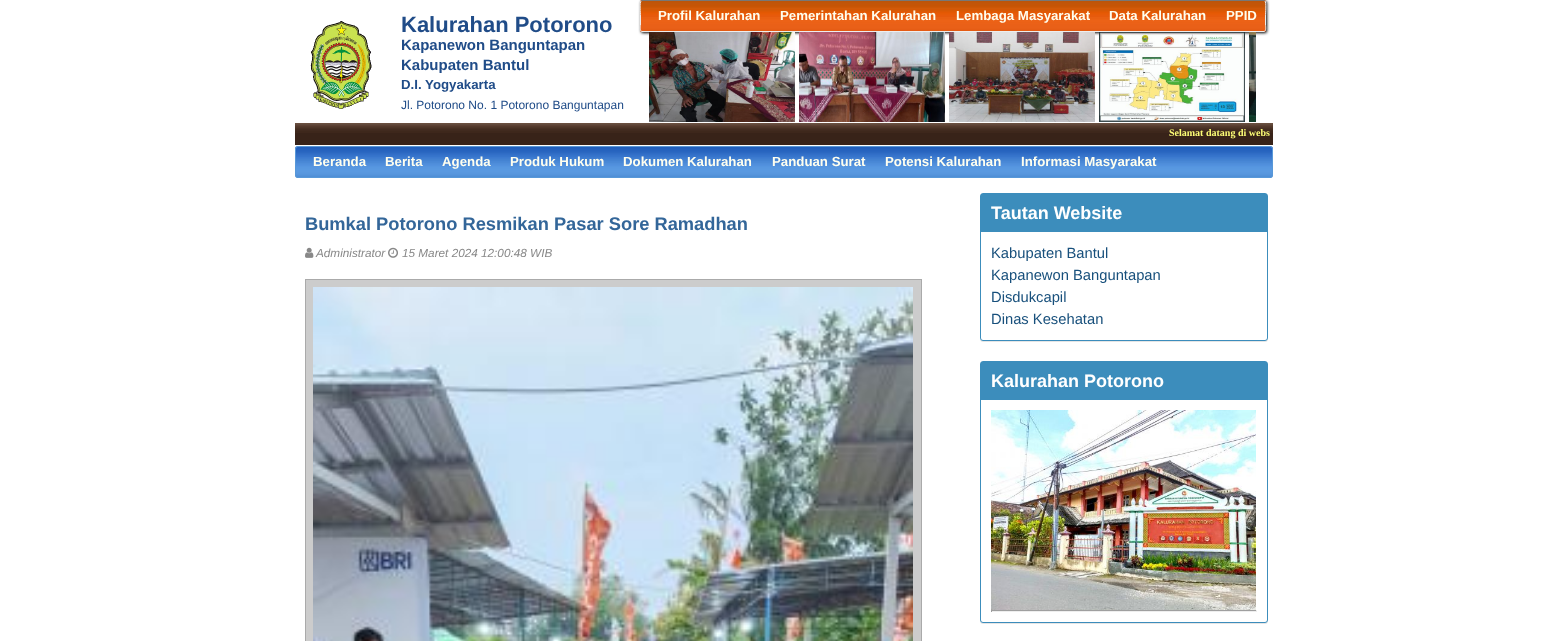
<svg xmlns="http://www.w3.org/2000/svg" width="1556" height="641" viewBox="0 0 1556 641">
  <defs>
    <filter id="blur1" x="-50%" y="-200%" width="200%" height="500%"><feGaussianBlur stdDeviation="1.5"/></filter>
    <filter id="blur2" x="-50%" y="-200%" width="200%" height="500%"><feGaussianBlur stdDeviation="0.5"/></filter>
  </defs>
  <rect width="100%" height="100%" fill="#ffffff"/>
  <image x="310" y="21" width="62" height="88" href="img1.png"/>
  <text x="401" y="32" font-family="Liberation Sans" font-size="22" font-weight="bold" fill="#204c88">Kalurahan Potorono</text>
  <text x="401" y="50" font-family="Liberation Sans" font-size="15" font-weight="bold" fill="#204c88">Kapanewon Banguntapan</text>
  <text x="401" y="70" font-family="Liberation Sans" font-size="15" font-weight="bold" fill="#204c88">Kabupaten Bantul</text>
  <text x="401" y="89" font-family="Liberation Sans" font-size="13.25" font-weight="bold" fill="#204c88">D.I. Yogyakarta</text>
  <text x="401" y="109" font-family="Liberation Sans" font-size="12" fill="#204c88">Jl. Potorono No. 1 Potorono Banguntapan</text>
  <rect x="641" y="1" width="626" height="32" rx="2" fill="#000000" filter="url(#blur1)"/>
  <image x="640" y="0" width="626" height="32" href="img2.png"/>
  <path d="M641 1L642 .5H1264L1265 1" fill="none" stroke="#777777"/>
  <path d="M1265 1C1266.5 2.5 1265.5 13.5 1265.5 16V25.5C1265.5 25.5 1266.5 31.5 1264 31.5H642C639.5 31.5 640.5 25.5 640.5 25.5V16C640.5 13.5 639.5 2.5 641 1" fill="none" stroke="#eeeeee"/>
  <text x="658" y="20" font-family="Liberation Sans" font-size="13.25" font-weight="bold" fill="#ffffef">Profil Kalurahan</text>
  <text x="780" y="20" font-family="Liberation Sans" font-size="13.25" font-weight="bold" fill="#ffffef">Pemerintahan Kalurahan</text>
  <text x="956" y="20" font-family="Liberation Sans" font-size="13.25" font-weight="bold" fill="#ffffef">Lembaga Masyarakat</text>
  <text x="1109" y="20" font-family="Liberation Sans" font-size="13.25" font-weight="bold" fill="#ffffef">Data Kalurahan</text>
  <text x="1226" y="20" font-family="Liberation Sans" font-size="13.25" font-weight="bold" fill="#ffffef">PPID</text>
  <image x="649" y="32" width="146" height="90" href="img3.png"/>
  <image x="799" y="32" width="146" height="90" href="img4.png"/>
  <image x="949" y="32" width="146" height="90" href="img5.png"/>
  <image x="1099" y="32" width="146" height="90" href="img6.png"/>
  <image x="1249" y="32" width="7" height="90" href="img7.png"/>
  <image x="295" y="123" width="978" height="22" href="img8.png"/>
  <text x="1169" y="136" font-family="Liberation Serif" font-size="10" font-weight="bold" fill="#fefe77">Selamat datang di webs</text>
  <image x="295" y="146" width="978" height="32" href="img9.png"/>
  <rect x="295.5" y="146.5" width="977" height="31" rx="2.5" fill="none" stroke="#5898d8"/>
  <text x="313" y="166" font-family="Liberation Sans" font-size="13.25" font-weight="bold" fill="#ffffef">Beranda</text>
  <text x="385" y="166" font-family="Liberation Sans" font-size="13.25" font-weight="bold" fill="#ffffef">Berita</text>
  <text x="442" y="166" font-family="Liberation Sans" font-size="13.25" font-weight="bold" fill="#ffffef">Agenda</text>
  <text x="510" y="166" font-family="Liberation Sans" font-size="13.25" font-weight="bold" fill="#ffffef">Produk Hukum</text>
  <text x="623" y="166" font-family="Liberation Sans" font-size="13.25" font-weight="bold" fill="#ffffef">Dokumen Kalurahan</text>
  <text x="772" y="166" font-family="Liberation Sans" font-size="13.25" font-weight="bold" fill="#ffffef">Panduan Surat</text>
  <text x="885" y="166" font-family="Liberation Sans" font-size="13.25" font-weight="bold" fill="#ffffef">Potensi Kalurahan</text>
  <text x="1021" y="166" font-family="Liberation Sans" font-size="13.25" font-weight="bold" fill="#ffffef">Informasi Masyarakat</text>
  <text x="305" y="230" font-family="Liberation Sans" font-size="18.3" font-weight="bold" fill="#336699">Bumkal Potorono Resmikan Pasar Sore Ramadhan</text>
  <image x="305" y="247" width="9" height="11" href="img10.png"/>
  <text x="316" y="257" font-family="Liberation Sans" font-size="11.75" font-style="italic" fill="#888888">Administrator</text>
  <image x="388" y="247" width="10" height="11" href="img11.png"/>
  <text x="402" y="257" font-family="Liberation Sans" font-size="11.75" font-style="italic" fill="#888888">15 Maret 2024 12:00:48 WIB</text>
  <rect x="305.5" y="279.5" width="616" height="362" fill="#cccccc" stroke="#aaaaaa"/>
  <image x="313" y="287" width="600" height="354" href="img12.png"/>
  <rect x="980" y="194" width="288" height="148" rx="3" fill="#000000" fill-opacity="0.1" filter="url(#blur2)"/>
  <rect x="980.5" y="193.5" width="287" height="147" rx="2.5" fill="#ffffff" stroke="#3c8dbc"/>
  <rect x="981" y="194" width="286" height="38" fill="#3c8dbc"/>
  <text x="991" y="219" font-family="Liberation Sans" font-size="18" font-weight="bold" fill="#ffffff">Tautan Website</text>
  <text x="991" y="258" font-family="Liberation Sans" font-size="14.75" fill="#18507c">Kabupaten Bantul</text>
  <text x="991" y="280" font-family="Liberation Sans" font-size="14.75" fill="#18507c">Kapanewon Banguntapan</text>
  <text x="991" y="302" font-family="Liberation Sans" font-size="14.75" fill="#18507c">Disdukcapil</text>
  <text x="991" y="324" font-family="Liberation Sans" font-size="14.75" fill="#18507c">Dinas Kesehatan</text>
  <rect x="980" y="362" width="288" height="262" rx="3" fill="#000000" fill-opacity="0.1" filter="url(#blur2)"/>
  <rect x="980.5" y="361.5" width="287" height="261" rx="2.5" fill="#ffffff" stroke="#3c8dbc"/>
  <rect x="981" y="362" width="286" height="38" fill="#3c8dbc"/>
  <text x="991" y="387" font-family="Liberation Sans" font-size="18" font-weight="bold" fill="#ffffff">Kalurahan Potorono</text>
  <image x="991" y="410" width="265" height="200" href="img13.png"/>
  <rect x="991" y="610" width="266" height="1" fill="#9f9f9f"/>
  <rect x="1256" y="610" width="1" height="2" fill="#eeeeee"/>
  <rect x="991" y="611" width="266" height="1" fill="#eeeeee"/>
  <rect x="991" y="610" width="1" height="2" fill="#9f9f9f"/>
</svg>
